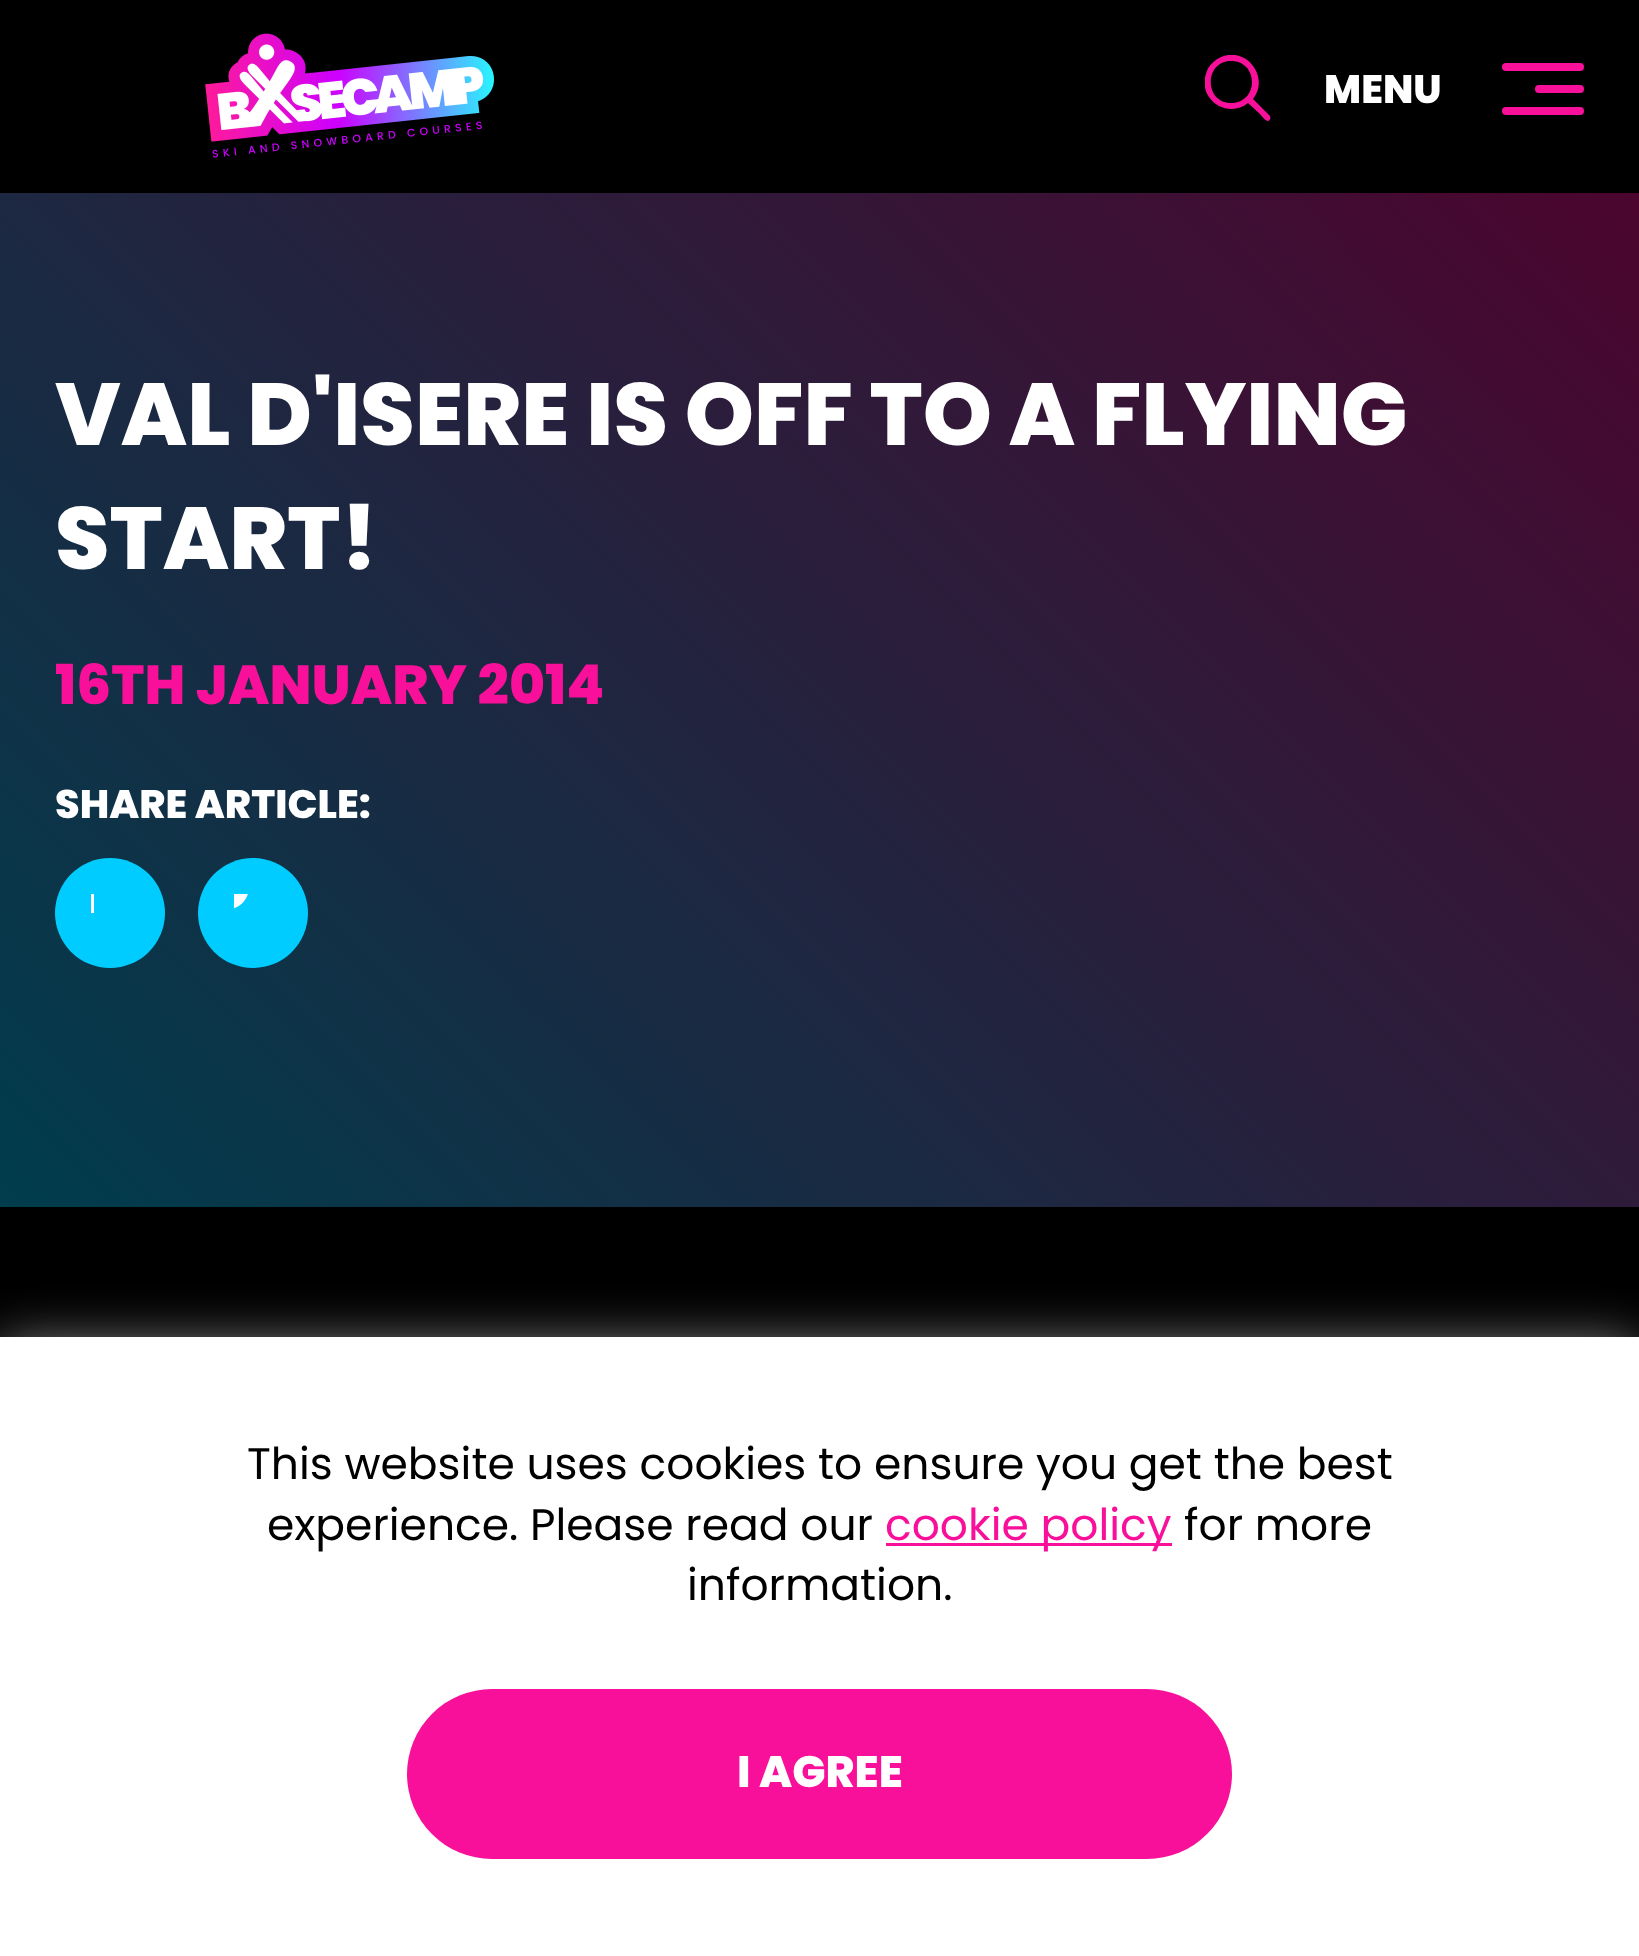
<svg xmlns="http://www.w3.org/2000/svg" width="1639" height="1956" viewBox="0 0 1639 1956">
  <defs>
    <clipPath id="clip1"><rect x="1205" y="55" width="66" height="66"/></clipPath>
    <linearGradient id="g1" gradientUnits="userSpaceOnUse" x1="156" y1="1363" x2="1483" y2="36"><stop offset="0" stop-color="#003d4d"/><stop offset="1" stop-color="#4b052e"/></linearGradient>
    <filter id="blur1" x="-50%" y="-200%" width="200%" height="500%"><feGaussianBlur stdDeviation="27.5"/></filter>
  </defs>
  <rect width="100%" height="100%" fill="#000000"/>
  <image x="205" y="33" width="289" height="125" href="img1.png"/>
  <g clip-path="url(#clip1)">
    <path d="M1270 116L1253 99C1270 78 1247 46 1221 57C1215 60 1209 65 1207 71C1203 80 1204 90 1209 97C1218 110 1236 113 1248 103L1260 114C1261 115 1268 125 1270 119C1271 118 1270 117 1270 116ZM1231 103C1204 103 1204 61 1231 61C1259 61 1259 103 1231 103Z" fill="#f9109a"/>
  </g>
  <text x="1324" y="103" font-family="Poppins" font-size="39.75" font-weight="800" fill="#ffffff">MENU</text>
  <rect x="1502" y="63" width="82" height="8" rx="4" fill="#f9109a"/>
  <rect x="1535" y="85" width="49" height="8" rx="4" fill="#f9109a"/>
  <rect x="1502" y="107" width="82" height="8" rx="4" fill="#f9109a"/>
  <rect x="0" y="193" width="1639" height="1014" fill="url(#g1)"/>
  <text x="55" y="445" font-family="Poppins" font-size="88" font-weight="800" fill="#ffffff">VAL D'ISERE IS OFF TO A FLYING</text>
  <text x="55" y="569" font-family="Poppins" font-size="88" font-weight="800" fill="#ffffff">START!</text>
  <text x="55" y="704" font-family="Poppins" font-size="55" font-weight="800" fill="#f9109a">16TH JANUARY 2014</text>
  <text x="55" y="818" font-family="Poppins" font-size="39.75" font-weight="800" fill="#ffffff">SHARE ARTICLE:</text>
  <circle cx="110" cy="913" r="55" fill="#00ccff"/>
  <rect x="91" y="894" width="3" height="19" fill="#ffffff"/>
  <circle cx="253" cy="913" r="55" fill="#00ccff"/>
  <image x="234" y="894" width="14" height="15" href="img2.png"/>
  <rect x="0" y="1348" width="1639" height="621" fill="#a4a4a4" filter="url(#blur1)"/>
  <rect x="0" y="1337" width="1639" height="619" fill="#ffffff"/>
  <text x="247" y="1479" font-family="Poppins" font-size="44" fill="#000000">This website uses cookies to ensure you get the best</text>
  <text x="267" y="1540" font-family="Poppins" font-size="44" fill="#000000">experience. Please read our</text>
  <rect x="886" y="1543" width="286" height="3" fill="#f9109a"/>
  <text x="885" y="1540" font-family="Poppins" font-size="44" fill="#f9109a">cookie policy</text>
  <text x="1184" y="1540" font-family="Poppins" font-size="44" fill="#000000">for more</text>
  <text x="687" y="1600" font-family="Poppins" font-size="44" fill="#000000">information.</text>
  <rect x="407" y="1689" width="825" height="170" rx="85" fill="#f9109a"/>
  <text x="737" y="1787" font-family="Poppins" font-size="44" font-weight="800" fill="#ffffff">I AGREE</text>
</svg>
